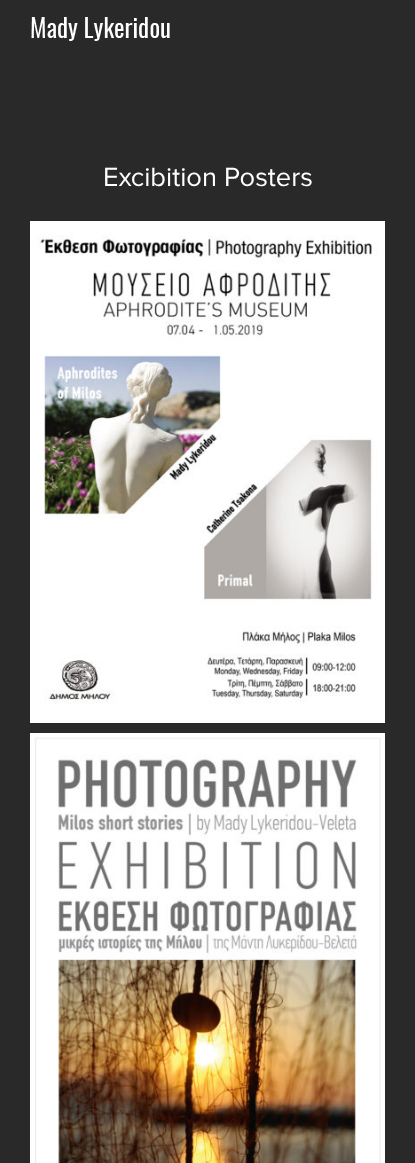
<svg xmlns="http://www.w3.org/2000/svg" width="415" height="1163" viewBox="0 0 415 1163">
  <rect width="100%" height="100%" fill="#29292a"/>
  <image x="31" y="17" width="139" height="24" href="img1.png"/>
  <text x="103" y="186" font-family="Proxima Nova" font-size="27.25" fill="#ffffff">Excibition Posters</text>
  <image x="30" y="221" width="355" height="502" href="img2.png"/>
  <image x="30" y="733" width="355" height="430" href="img3.png"/>
</svg>
